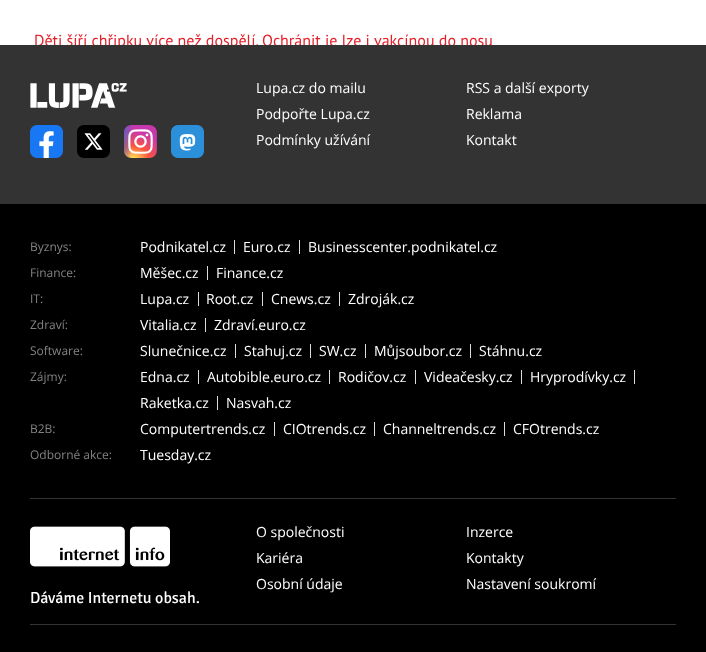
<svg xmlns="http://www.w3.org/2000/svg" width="706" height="652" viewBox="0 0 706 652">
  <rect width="100%" height="100%" fill="#ffffff"/>
  <text x="34" y="46" font-family="PT Sans" font-size="16" fill="#e4202a">Děti šíří chřipku více než dospělí. Ochránit je lze i vakcínou do nosu</text>
  <rect x="0" y="204" width="706" height="448" fill="#000000"/>
  <rect x="0" y="45" width="706" height="159" fill="#333333"/>
  <image x="30" y="83" width="97" height="25" href="img1.png"/>
  <image x="30" y="125" width="33" height="33" href="img2.png"/>
  <image x="77" y="125" width="33" height="33" href="img3.png"/>
  <image x="124" y="125" width="33" height="33" href="img4.png"/>
  <image x="171" y="125" width="33" height="33" href="img5.png"/>
  <text x="256" y="93" font-family="Open Sans" font-size="14" fill="#ffffff">Lupa.cz do mailu</text>
  <text x="466" y="93" font-family="Open Sans" font-size="14" fill="#ffffff">RSS a další exporty</text>
  <text x="256" y="119" font-family="Open Sans" font-size="14" fill="#ffffff">Podpořte Lupa.cz</text>
  <text x="466" y="119" font-family="Open Sans" font-size="14" fill="#ffffff">Reklama</text>
  <text x="256" y="145" font-family="Open Sans" font-size="14" fill="#ffffff">Podmínky užívání</text>
  <text x="466" y="145" font-family="Open Sans" font-size="14" fill="#ffffff">Kontakt</text>
  <text x="30" y="251" font-family="Open Sans" font-size="12" fill="#828282">Byznys:</text>
  <rect x="234" y="240" width="1" height="14" fill="#dddddd"/>
  <text x="140" y="252" font-family="Open Sans" font-size="14" fill="#ffffff">Podnikatel.cz</text>
  <rect x="299" y="240" width="1" height="14" fill="#dddddd"/>
  <text x="243" y="252" font-family="Open Sans" font-size="14" fill="#ffffff">Euro.cz</text>
  <text x="308" y="252" font-family="Open Sans" font-size="14" fill="#ffffff">Businesscenter.podnikatel.cz</text>
  <text x="30" y="277" font-family="Open Sans" font-size="12" fill="#828282">Finance:</text>
  <rect x="207" y="266" width="1" height="14" fill="#dddddd"/>
  <text x="140" y="278" font-family="Open Sans" font-size="14" fill="#ffffff">Měšec.cz</text>
  <text x="216" y="278" font-family="Open Sans" font-size="14" fill="#ffffff">Finance.cz</text>
  <text x="30" y="303" font-family="Open Sans" font-size="12" fill="#828282">IT:</text>
  <rect x="198" y="292" width="1" height="14" fill="#dddddd"/>
  <text x="140" y="304" font-family="Open Sans" font-size="14" fill="#ffffff">Lupa.cz</text>
  <rect x="262" y="292" width="1" height="14" fill="#dddddd"/>
  <text x="206" y="304" font-family="Open Sans" font-size="14" fill="#ffffff">Root.cz</text>
  <rect x="339" y="292" width="1" height="14" fill="#dddddd"/>
  <text x="271" y="304" font-family="Open Sans" font-size="14" fill="#ffffff">Cnews.cz</text>
  <text x="348" y="304" font-family="Open Sans" font-size="14" fill="#ffffff">Zdroják.cz</text>
  <text x="30" y="329" font-family="Open Sans" font-size="12" fill="#828282">Zdraví:</text>
  <rect x="205" y="318" width="1" height="14" fill="#dddddd"/>
  <text x="140" y="330" font-family="Open Sans" font-size="14" fill="#ffffff">Vitalia.cz</text>
  <text x="214" y="330" font-family="Open Sans" font-size="14" fill="#ffffff">Zdraví.euro.cz</text>
  <text x="30" y="355" font-family="Open Sans" font-size="12" fill="#828282">Software:</text>
  <rect x="235" y="344" width="1" height="14" fill="#dddddd"/>
  <text x="140" y="356" font-family="Open Sans" font-size="14" fill="#ffffff">Slunečnice.cz</text>
  <rect x="310" y="344" width="1" height="14" fill="#dddddd"/>
  <text x="244" y="356" font-family="Open Sans" font-size="14" fill="#ffffff">Stahuj.cz</text>
  <rect x="365" y="344" width="1" height="14" fill="#dddddd"/>
  <text x="319" y="356" font-family="Open Sans" font-size="14" fill="#ffffff">SW.cz</text>
  <rect x="470" y="344" width="1" height="14" fill="#dddddd"/>
  <text x="374" y="356" font-family="Open Sans" font-size="14" fill="#ffffff">Můjsoubor.cz</text>
  <text x="479" y="356" font-family="Open Sans" font-size="14" fill="#ffffff">Stáhnu.cz</text>
  <text x="30" y="381" font-family="Open Sans" font-size="12" fill="#828282">Zájmy:</text>
  <rect x="198" y="370" width="1" height="14" fill="#dddddd"/>
  <text x="140" y="382" font-family="Open Sans" font-size="14" fill="#ffffff">Edna.cz</text>
  <rect x="329" y="370" width="1" height="14" fill="#dddddd"/>
  <text x="207" y="382" font-family="Open Sans" font-size="14" fill="#ffffff">Autobible.euro.cz</text>
  <rect x="415" y="370" width="1" height="14" fill="#dddddd"/>
  <text x="338" y="382" font-family="Open Sans" font-size="14" fill="#ffffff">Rodičov.cz</text>
  <rect x="521" y="370" width="1" height="14" fill="#dddddd"/>
  <text x="424" y="382" font-family="Open Sans" font-size="14" fill="#ffffff">Videačesky.cz</text>
  <rect x="634" y="370" width="1" height="14" fill="#dddddd"/>
  <text x="530" y="382" font-family="Open Sans" font-size="14" fill="#ffffff">Hryprodívky.cz</text>
  <rect x="217" y="396" width="1" height="14" fill="#dddddd"/>
  <text x="140" y="408" font-family="Open Sans" font-size="14" fill="#ffffff">Raketka.cz</text>
  <text x="226" y="408" font-family="Open Sans" font-size="14" fill="#ffffff">Nasvah.cz</text>
  <text x="30" y="433" font-family="Open Sans" font-size="12" fill="#828282">B2B:</text>
  <rect x="274" y="422" width="1" height="14" fill="#dddddd"/>
  <text x="140" y="434" font-family="Open Sans" font-size="14" fill="#ffffff">Computertrends.cz</text>
  <rect x="374" y="422" width="1" height="14" fill="#dddddd"/>
  <text x="283" y="434" font-family="Open Sans" font-size="14" fill="#ffffff">CIOtrends.cz</text>
  <rect x="504" y="422" width="1" height="14" fill="#dddddd"/>
  <text x="383" y="434" font-family="Open Sans" font-size="14" fill="#ffffff">Channeltrends.cz</text>
  <text x="513" y="434" font-family="Open Sans" font-size="14" fill="#ffffff">CFOtrends.cz</text>
  <text x="30" y="459" font-family="Open Sans" font-size="12" fill="#828282">Odborné akce:</text>
  <text x="140" y="460" font-family="Open Sans" font-size="14" fill="#ffffff">Tuesday.cz</text>
  <rect x="30" y="498" width="646" height="1" fill="#333333"/>
  <text x="256" y="537" font-family="Open Sans" font-size="14" fill="#ffffff">O společnosti</text>
  <text x="466" y="537" font-family="Open Sans" font-size="14" fill="#ffffff">Inzerce</text>
  <text x="256" y="563" font-family="Open Sans" font-size="14" fill="#ffffff">Kariéra</text>
  <text x="466" y="563" font-family="Open Sans" font-size="14" fill="#ffffff">Kontakty</text>
  <text x="256" y="589" font-family="Open Sans" font-size="14" fill="#ffffff">Osobní údaje</text>
  <text x="466" y="589" font-family="Open Sans" font-size="14" fill="#ffffff">Nastavení soukromí</text>
  <image x="30" y="526" width="140" height="41" href="img6.png"/>
  <text x="30" y="603" font-family="Signika" font-size="16" font-weight="300" fill="#ffffff">Dáváme Internetu obsah.</text>
  <rect x="30" y="624" width="646" height="1" fill="#333333"/>
</svg>
